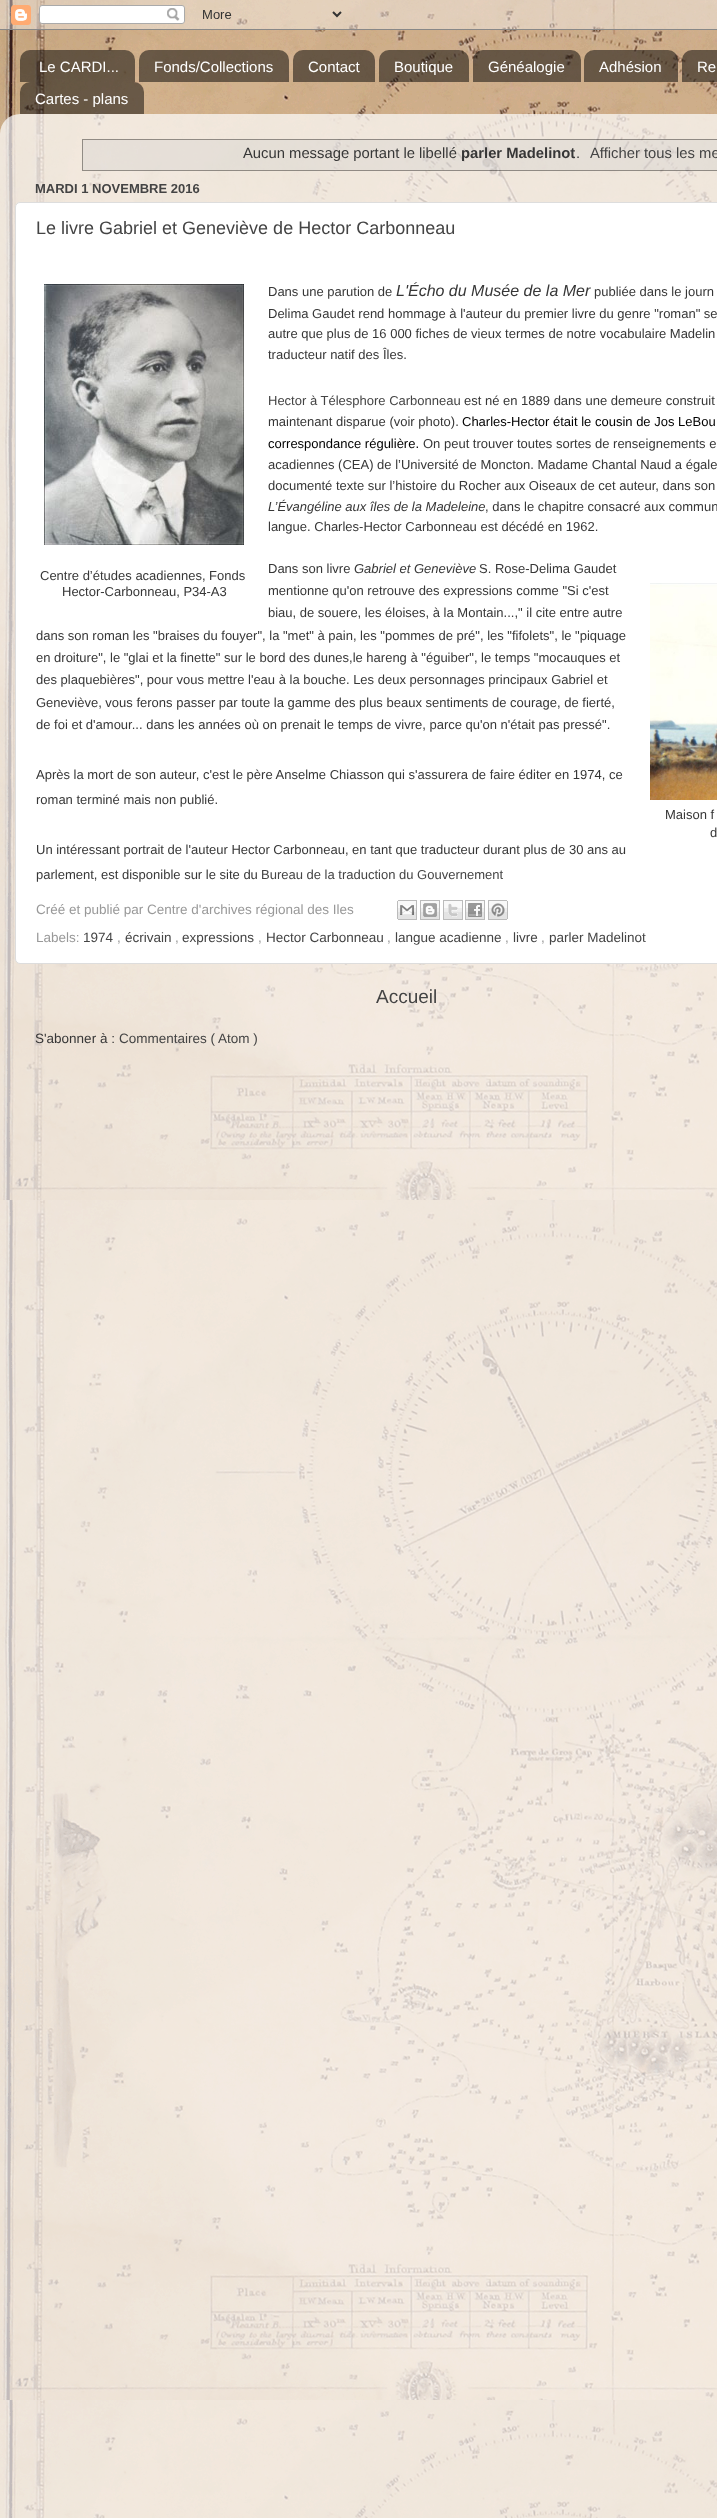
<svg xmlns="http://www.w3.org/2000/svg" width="717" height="2518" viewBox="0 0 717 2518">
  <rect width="100%" height="100%" fill="#ffffff"/>
  <image x="0" y="0" width="717" height="2518" href="img1.png"/>
  <image x="0" y="0" width="717" height="30" href="img2.png"/>
  <image x="20" y="50" width="115" height="32" href="img3.png"/>
  <text x="39" y="72" font-family="Liberation Sans" font-size="15" fill="#ffffff">Le CARDI...</text>
  <image x="139" y="50" width="150" height="32" href="img4.png"/>
  <text x="154" y="72" font-family="Liberation Sans" font-size="15" fill="#ffffff">Fonds/Collections</text>
  <image x="293" y="50" width="82" height="32" href="img5.png"/>
  <text x="308" y="72" font-family="Liberation Sans" font-size="15" fill="#ffffff">Contact</text>
  <image x="379" y="50" width="90" height="32" href="img6.png"/>
  <text x="394" y="72" font-family="Liberation Sans" font-size="15" fill="#ffffff">Boutique</text>
  <image x="473" y="50" width="108" height="32" href="img7.png"/>
  <text x="488" y="72" font-family="Liberation Sans" font-size="15" fill="#ffffff">Généalogie</text>
  <image x="584" y="50" width="94" height="32" href="img8.png"/>
  <text x="599" y="72" font-family="Liberation Sans" font-size="15" fill="#ffffff">Adhésion</text>
  <image x="682" y="50" width="35" height="32" href="img9.png"/>
  <text x="697" y="72" font-family="Liberation Sans" font-size="15" fill="#ffffff">Re</text>
  <image x="20" y="82" width="124" height="32" href="img10.png"/>
  <text x="35" y="104" font-family="Liberation Sans" font-size="15" fill="#ffffff">Cartes - plans</text>
  <image x="0" y="114" width="717" height="2404" href="img11.png"/>
  <rect x="82.5" y="139.5" width="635" height="31" fill="none" stroke="#000000" stroke-opacity="0.4"/>
  <rect x="83" y="140" width="634" height="30" fill="#cccccc" fill-opacity="0.32"/>
  <text x="243" y="158" font-family="Liberation Sans" font-size="14.8" fill="#373737">Aucun message portant le libellé</text>
  <text x="461" y="158" font-family="Liberation Sans" font-size="14.8" font-weight="bold" fill="#373737">parler Madelinot</text>
  <text x="576" y="158" font-family="Liberation Sans" font-size="14.8" fill="#373737">.</text>
  <text x="590" y="158" font-family="Liberation Sans" font-size="14.8" fill="#444444">Afficher tous les me</text>
  <text x="35" y="193" font-family="Liberation Sans" font-size="13" font-weight="bold" fill="#444444">MARDI 1 NOVEMBRE 2016</text>
  <rect x="15.5" y="202.5" width="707" height="761" rx="4.5" fill="#ffffff" stroke="#dddddd"/>
  <text x="36" y="234" font-family="Liberation Sans" font-size="18" fill="#444444">Le livre Gabriel et Geneviève de Hector Carbonneau</text>
  <text x="268" y="296" font-family="Liberation Sans" font-size="13" fill="#373737">Dans une parution de</text>
  <text x="396" y="296" font-family="Liberation Sans" font-size="16" font-style="italic" fill="#373737">L'Écho du Musée de la Mer</text>
  <text x="594" y="296" font-family="Liberation Sans" font-size="13" fill="#373737">publiée dans le journ</text>
  <text x="268" y="318" font-family="Liberation Sans" font-size="13" fill="#373737">Delima Gaudet rend hommage à l'auteur du premier livre du genre "roman" se</text>
  <text x="268" y="338" font-family="Liberation Sans" font-size="13" fill="#373737">autre que plus de 16 000 fiches de vieux termes de notre vocabulaire Madelin</text>
  <text x="268" y="359" font-family="Liberation Sans" font-size="13" fill="#373737">traducteur natif des Îles.</text>
  <text x="268" y="405" font-family="Liberation Sans" font-size="13" fill="#444444">Hector à Télesphore Carbonneau</text>
  <text x="464" y="405" font-family="Liberation Sans" font-size="13" fill="#373737">est né en 1889 dans une demeure construit</text>
  <text x="268" y="426" font-family="Liberation Sans" font-size="13" fill="#373737">maintenant disparue (voir photo).</text>
  <text x="462" y="426" font-family="Liberation Sans" font-size="13" fill="#000000">Charles-Hector était le cousin de Jos LeBou</text>
  <text x="268" y="448" font-family="Liberation Sans" font-size="13" fill="#000000">correspondance régulière.</text>
  <text x="423" y="448" font-family="Liberation Sans" font-size="13" fill="#373737">On peut trouver toutes sortes de renseignements e</text>
  <text x="268" y="469" font-family="Liberation Sans" font-size="13" fill="#373737">acadiennes (CEA) de l’Université de Moncton. Madame Chantal Naud a égale</text>
  <text x="268" y="490" font-family="Liberation Sans" font-size="13" fill="#373737">documenté texte sur l’histoire du Rocher aux Oiseaux de cet auteur, dans son</text>
  <text x="268" y="511" font-family="Liberation Sans" font-size="13" font-style="italic" fill="#373737">L’Évangéline aux îles de la Madeleine</text>
  <text x="485" y="511" font-family="Liberation Sans" font-size="13" fill="#373737">, dans le chapitre consacré aux commun</text>
  <text x="268" y="531" font-family="Liberation Sans" font-size="13" fill="#373737">langue. Charles-Hector Carbonneau est décédé en 1962.</text>
  <text x="268" y="573" font-family="Liberation Sans" font-size="13" fill="#373737">Dans son livre</text>
  <text x="354" y="573" font-family="Liberation Sans" font-size="13" font-style="italic" fill="#373737">Gabriel et Geneviève</text>
  <text x="479" y="573" font-family="Liberation Sans" font-size="13" fill="#373737">S. Rose-Delima Gaudet</text>
  <image x="44" y="284" width="200" height="261" href="img12.png"/>
  <text x="40" y="580" font-family="Liberation Sans" font-size="13" fill="#373737">Centre d’études acadiennes, Fonds</text>
  <text x="62" y="596" font-family="Liberation Sans" font-size="13" fill="#373737">Hector-Carbonneau, P34-A3</text>
  <text x="268" y="595" font-family="Liberation Sans" font-size="13" fill="#373737">mentionne qu'on retrouve des expressions comme "Si c'est</text>
  <text x="268" y="617" font-family="Liberation Sans" font-size="13" fill="#373737">biau, de souere, les éloises, à la Montain...," il cite entre autre</text>
  <text x="36" y="640" font-family="Liberation Sans" font-size="13" fill="#373737">dans son roman les "braises du fouyer", la "met" à pain, les "pommes de pré", les "fifolets", le "piquage</text>
  <text x="36" y="662" font-family="Liberation Sans" font-size="13" fill="#373737">en droiture", le "glai et la finette" sur le bord des dunes,le hareng à "éguiber", le temps "mocauques et</text>
  <text x="36" y="684" font-family="Liberation Sans" font-size="13" fill="#373737">des plaquebières", pour vous mettre l'eau à la bouche. Les deux personnages principaux Gabriel et</text>
  <text x="36" y="707" font-family="Liberation Sans" font-size="13" fill="#373737">Geneviève, vous ferons passer par toute la gamme des plus beaux sentiments de courage, de fierté,</text>
  <text x="36" y="729" font-family="Liberation Sans" font-size="13" fill="#373737">de foi et d'amour... dans les années où on prenait le temps de vivre, parce qu'on n'était pas pressé".</text>
  <text x="36" y="779" font-family="Liberation Sans" font-size="13" fill="#373737">Après la mort de son auteur, c'est le père Anselme Chiasson qui s'assurera de faire éditer en 1974, ce</text>
  <text x="36" y="804" font-family="Liberation Sans" font-size="13" fill="#373737">roman terminé mais non publié.</text>
  <image x="650" y="583" width="67" height="217" href="img13.png"/>
  <text x="665" y="819" font-family="Liberation Sans" font-size="13" fill="#373737">Maison f</text>
  <text x="710" y="837" font-family="Liberation Sans" font-size="13" fill="#373737">d</text>
  <text x="36" y="854" font-family="Liberation Sans" font-size="13" fill="#373737">Un intéressant portrait de l'auteur Hector Carbonneau, en tant que traducteur durant plus de 30 ans au</text>
  <text x="36" y="879" font-family="Liberation Sans" font-size="13" fill="#373737">parlement, est disponible sur le site du</text>
  <text x="261" y="879" font-family="Liberation Sans" font-size="13" fill="#444444">Bureau de la traduction du Gouvernement</text>
  <text x="36" y="914" font-family="Liberation Sans" font-size="13.5" fill="#999999">Créé et publié par Centre d'archives régional des Iles</text>
  <image x="397" y="900" width="20" height="20" href="img14.png"/>
  <image x="420" y="900" width="20" height="20" href="img15.png"/>
  <image x="443" y="900" width="20" height="20" href="img16.png"/>
  <image x="465" y="900" width="20" height="20" href="img17.png"/>
  <image x="488" y="900" width="20" height="20" href="img18.png"/>
  <text x="36" y="942" font-family="Liberation Sans" font-size="13.5" fill="#999999">Labels:</text>
  <text x="83" y="942" font-family="Liberation Sans" font-size="13.5" fill="#444444">1974</text>
  <text x="117" y="942" font-family="Liberation Sans" font-size="13.5" fill="#999999">,</text>
  <text x="125" y="942" font-family="Liberation Sans" font-size="13.5" fill="#444444">écrivain</text>
  <text x="175" y="942" font-family="Liberation Sans" font-size="13.5" fill="#999999">,</text>
  <text x="182" y="942" font-family="Liberation Sans" font-size="13.5" fill="#444444">expressions</text>
  <text x="258" y="942" font-family="Liberation Sans" font-size="13.5" fill="#999999">,</text>
  <text x="266" y="942" font-family="Liberation Sans" font-size="13.5" fill="#444444">Hector Carbonneau</text>
  <text x="387" y="942" font-family="Liberation Sans" font-size="13.5" fill="#999999">,</text>
  <text x="395" y="942" font-family="Liberation Sans" font-size="13.5" fill="#444444">langue acadienne</text>
  <text x="505" y="942" font-family="Liberation Sans" font-size="13.5" fill="#999999">,</text>
  <text x="513" y="942" font-family="Liberation Sans" font-size="13.5" fill="#444444">livre</text>
  <text x="541" y="942" font-family="Liberation Sans" font-size="13.5" fill="#999999">,</text>
  <text x="549" y="942" font-family="Liberation Sans" font-size="13.5" fill="#444444">parler Madelinot</text>
  <text x="376" y="1003" font-family="Liberation Sans" font-size="19" fill="#444444">Accueil</text>
  <text x="35" y="1043" font-family="Liberation Sans" font-size="13.5" fill="#373737">S'abonner à :</text>
  <text x="119" y="1043" font-family="Liberation Sans" font-size="13.5" fill="#444444">Commentaires (</text>
  <text x="218" y="1043" font-family="Liberation Sans" font-size="13.5" fill="#444444">Atom )</text>
</svg>
